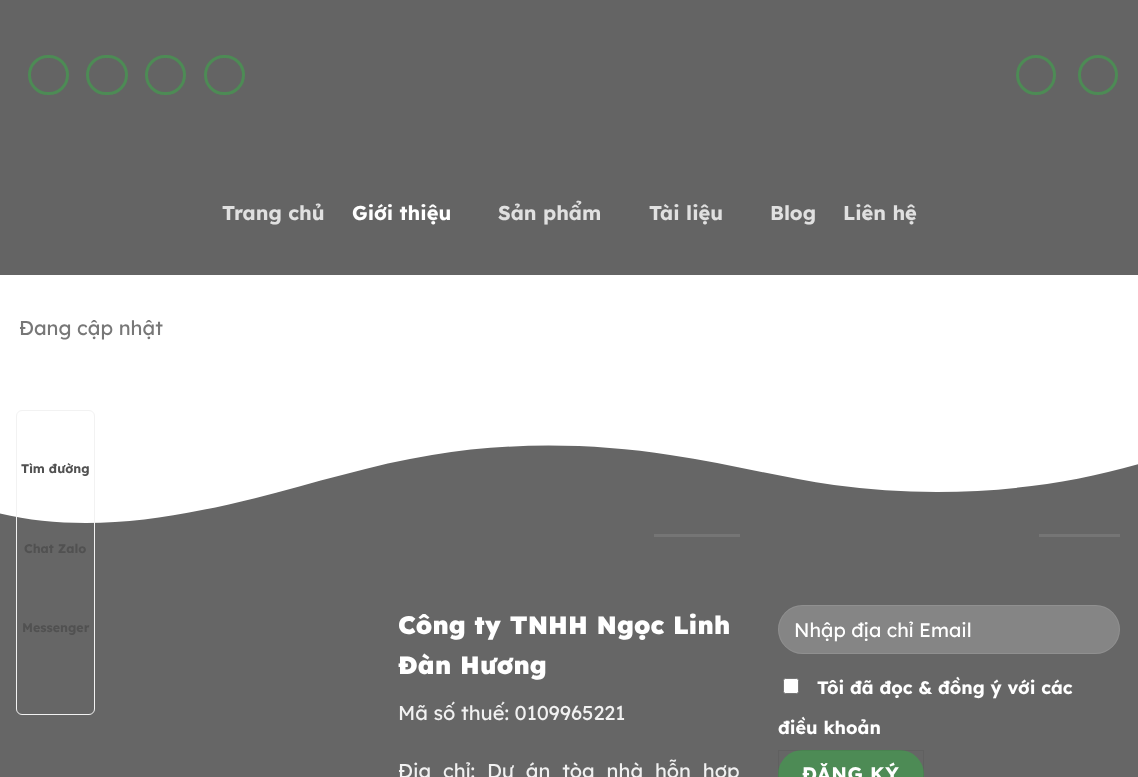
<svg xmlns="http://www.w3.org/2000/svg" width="1138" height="777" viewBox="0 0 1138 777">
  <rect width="100%" height="100%" fill="#ffffff"/>
  <rect x="0" y="0" width="1138" height="275" fill="#646464"/>
  <rect x="29.5" y="56.5" width="38" height="37" rx="18.5" fill="none" stroke="#4d8b55" stroke-width="3"/>
  <rect x="87.5" y="56.5" width="39" height="37" rx="18.5" fill="none" stroke="#4d8b55" stroke-width="3"/>
  <rect x="146.5" y="56.5" width="38" height="37" rx="18.5" fill="none" stroke="#4d8b55" stroke-width="3"/>
  <rect x="205.5" y="56.5" width="38" height="37" rx="18.5" fill="none" stroke="#4d8b55" stroke-width="3"/>
  <circle cx="1036" cy="75" r="18.5" fill="none" stroke="#4d8b55" stroke-width="3"/>
  <circle cx="1098" cy="75" r="18.5" fill="none" stroke="#4d8b55" stroke-width="3"/>
  <text x="222" y="220" font-family="Lexend" font-size="20" font-weight="bold" fill="#e0e0e0">Trang chủ</text>
  <text x="352" y="220" font-family="Lexend" font-size="20" font-weight="bold" fill="#ffffff">Giới thiệu</text>
  <text x="498" y="220" font-family="Lexend" font-size="20" font-weight="bold" fill="#e0e0e0">Sản phẩm</text>
  <text x="649" y="220" font-family="Lexend" font-size="20" font-weight="bold" fill="#e0e0e0">Tài liệu</text>
  <text x="770" y="220" font-family="Lexend" font-size="20" font-weight="bold" fill="#e0e0e0">Blog</text>
  <text x="843" y="220" font-family="Lexend" font-size="20" font-weight="bold" fill="#e0e0e0">Liên hệ</text>
  <text x="19" y="335" font-family="Lexend" font-size="20" fill="#777777">Đang cập nhật</text>
  <rect x="0" y="445" width="1138" height="332" fill="#666666"/>
  <path d="M834 485C779 477 725 463 670 455C592 443 510 442 432 455C356 467 277 496 202 510C135 524 63 529-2 513V445H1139V464C1042 492 936 499 834 485Z" fill="#ffffff"/>
  <rect x="654" y="534" width="86" height="3" fill="#757575"/>
  <text x="398" y="634" font-family="Lexend" font-size="25" font-weight="900" fill="#ffffff">Công ty TNHH Ngọc Linh</text>
  <text x="398" y="674" font-family="Lexend" font-size="25" font-weight="900" fill="#ffffff">Đàn Hương</text>
  <text x="398" y="720" font-family="Lexend" font-size="20" fill="#f1f1f1">Mã số thuế: 0109965221</text>
  <text x="398" y="778" word-spacing="6.25" font-family="Lexend" font-size="20" fill="#f1f1f1">Địa chỉ: Dự án tòa nhà hỗn hợp</text>
  <rect x="1039" y="534" width="81" height="3" fill="#757575"/>
  <rect x="778" y="605" width="342" height="49" rx="24.5" fill="#858585"/>
  <rect x="778.5" y="605.5" width="341" height="48" rx="24" fill="none" stroke="#ffffff" stroke-opacity="0.09"/>
  <text x="794" y="637" font-family="Lexend" font-size="19.5" fill="#ffffff">Nhập địa chỉ Email</text>
  <rect x="783.5" y="678.5" width="15" height="15" rx="2" fill="#ffffff" stroke="#767676"/>
  <text x="817" y="694" font-family="Lexend" font-size="18" font-weight="bold" fill="#ffffff">Tôi đã đọc &amp; đồng ý với các</text>
  <text x="778" y="734" font-family="Lexend" font-size="18" font-weight="bold" fill="#ffffff">điều khoản</text>
  <rect x="778" y="750" width="146" height="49" rx="24.5" fill="#4d8b55"/>
  <rect x="778.5" y="750.5" width="145" height="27" fill="none" stroke="#000000" stroke-opacity="0.05"/>
  <text x="802" y="781" font-family="Lexend" font-size="19.5" font-weight="bold" letter-spacing="0.5" fill="#ffffff">ĐĂNG KÝ</text>
  <rect x="16.5" y="410.5" width="78" height="304" rx="5.5" fill="none" stroke="#f2f2f2"/>
  <text x="21" y="473" font-family="Lexend" font-size="12.5" font-weight="bold" fill="#515151">Tìm đường</text>
  <text x="24" y="553" font-family="Lexend" font-size="12.5" font-weight="bold" fill="#515151">Chat Zalo</text>
  <text x="22" y="632" font-family="Lexend" font-size="12.5" font-weight="bold" fill="#515151">Messenger</text>
</svg>
